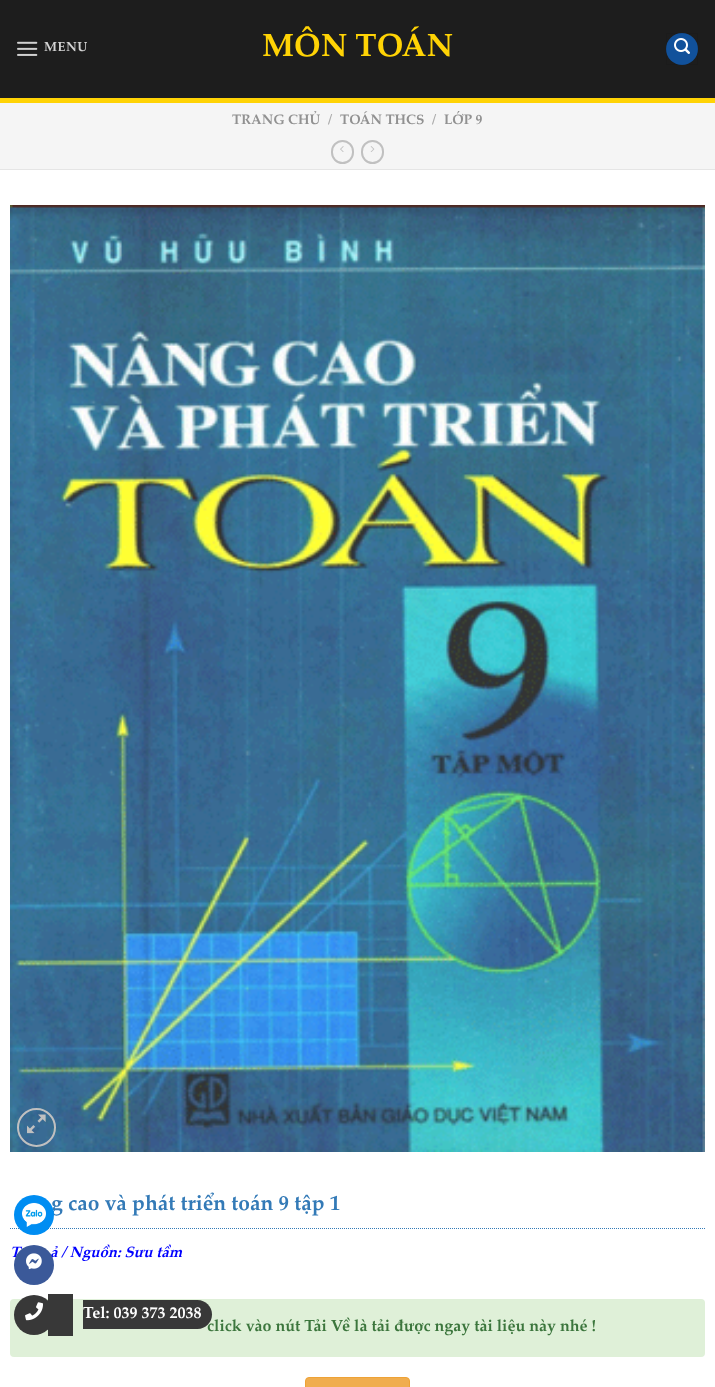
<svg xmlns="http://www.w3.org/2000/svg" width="715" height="1387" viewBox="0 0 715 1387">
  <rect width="100%" height="100%" fill="#ffffff"/>
  <rect x="0" y="98" width="715" height="5" fill="#ffd305"/>
  <rect x="0" y="0" width="715" height="98" fill="#1d1d1d"/>
  <image x="17" y="41" width="21" height="15" href="img1.png"/>
  <text x="44" y="51" font-family="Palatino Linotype" font-size="13" font-weight="bold" letter-spacing="0.5" fill="#d2d2d2">MENU</text>
  <text x="262" y="56" font-family="Palatino Linotype" font-size="32" font-weight="bold" fill="#ffd305">MÔN TOÁN</text>
  <circle cx="682" cy="49" r="16" fill="#11519b"/>
  <rect x="666.5" y="33.5" width="31" height="31" fill="none" stroke="#000000" stroke-opacity="0.05"/>
  <image x="674" y="38" width="16" height="16" href="img2.png"/>
  <rect x="0" y="103" width="715" height="66" fill="#f5f5f5"/>
  <rect x="0" y="169" width="715" height="1" fill="#e5e5e5"/>
  <text x="232" y="124" font-family="Palatino Linotype" font-size="13.75" font-weight="bold" fill="#919191">TRANG CHỦ</text>
  <text x="328" y="124" font-family="Palatino Linotype" font-size="13.75" font-weight="bold" fill="#ababab">/</text>
  <text x="340" y="124" font-family="Palatino Linotype" font-size="13.75" font-weight="bold" fill="#919191">TOÁN THCS</text>
  <text x="432" y="124" font-family="Palatino Linotype" font-size="13.75" font-weight="bold" fill="#ababab">/</text>
  <text x="444" y="124" font-family="Palatino Linotype" font-size="13.75" font-weight="bold" fill="#919191">LỚP 9</text>
  <rect x="332" y="141" width="21" height="22" rx="10.5" fill="none" stroke="#c0c0c0" stroke-width="2"/>
  <image x="340" y="146" width="4" height="6" href="img3.png"/>
  <rect x="362" y="141" width="21" height="22" rx="10.5" fill="none" stroke="#c0c0c0" stroke-width="2"/>
  <image x="370" y="146" width="5" height="6" href="img4.png"/>
  <image x="10" y="205" width="695" height="947" href="img5.png"/>
  <circle cx="36.5" cy="1127.5" r="18.5" fill="none" stroke="#c0c0c0" stroke-width="2"/>
  <image x="27" y="1114" width="19" height="20" href="img6.png"/>
  <path d="M10 1228.5H705" fill="none" stroke="#337ab7" stroke-dasharray="1 1"/>
  <text x="51" y="1210" font-family="Palatino Linotype" font-size="21" font-weight="bold" fill="#337ab7">g cao và phát triển toán 9 tập 1</text>
  <text x="10" y="1257" font-family="Palatino Linotype" font-size="15" font-weight="bold" font-style="italic" fill="#0000ff">T</text>
  <text x="50" y="1257" font-family="Palatino Linotype" font-size="15" font-weight="bold" font-style="italic" fill="#0000ff">ả / Nguồn: Sưu tầm</text>
  <rect x="10" y="1299" width="695" height="58" rx="4" fill="#dff0d8"/>
  <text x="207" y="1331" font-family="Palatino Linotype" font-size="16" font-weight="bold" fill="#3c763d">click vào nút Tải Về là tải được ngay tài liệu này nhé !</text>
  <rect x="305.5" y="1377.5" width="104" height="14" rx="3.5" fill="#f0ad4e" stroke="#eea236"/>
  <circle cx="34" cy="1215" r="20" fill="#008df2"/>
  <image x="22" y="1202" width="24" height="25" href="img7.png"/>
  <circle cx="34" cy="1265" r="20" fill="#3b5999"/>
  <image x="26" y="1253" width="16" height="17" href="img8.png"/>
  <circle cx="34" cy="1315" r="20" fill="#383838"/>
  <image x="25" y="1302" width="18" height="19" href="img9.png"/>
  <path d="M83 1300H197.5C205.5 1300 212 1306.5 212 1314.5C212 1322.5 205.5 1329 197.5 1329H83Z" fill="#383838"/>
  <text x="83" y="1318" font-family="Palatino Linotype" font-size="16" font-weight="bold" fill="#ffffff">Tel: 039 373 2038</text>
  <rect x="48" y="1294" width="25" height="42" fill="#383838"/>
</svg>
